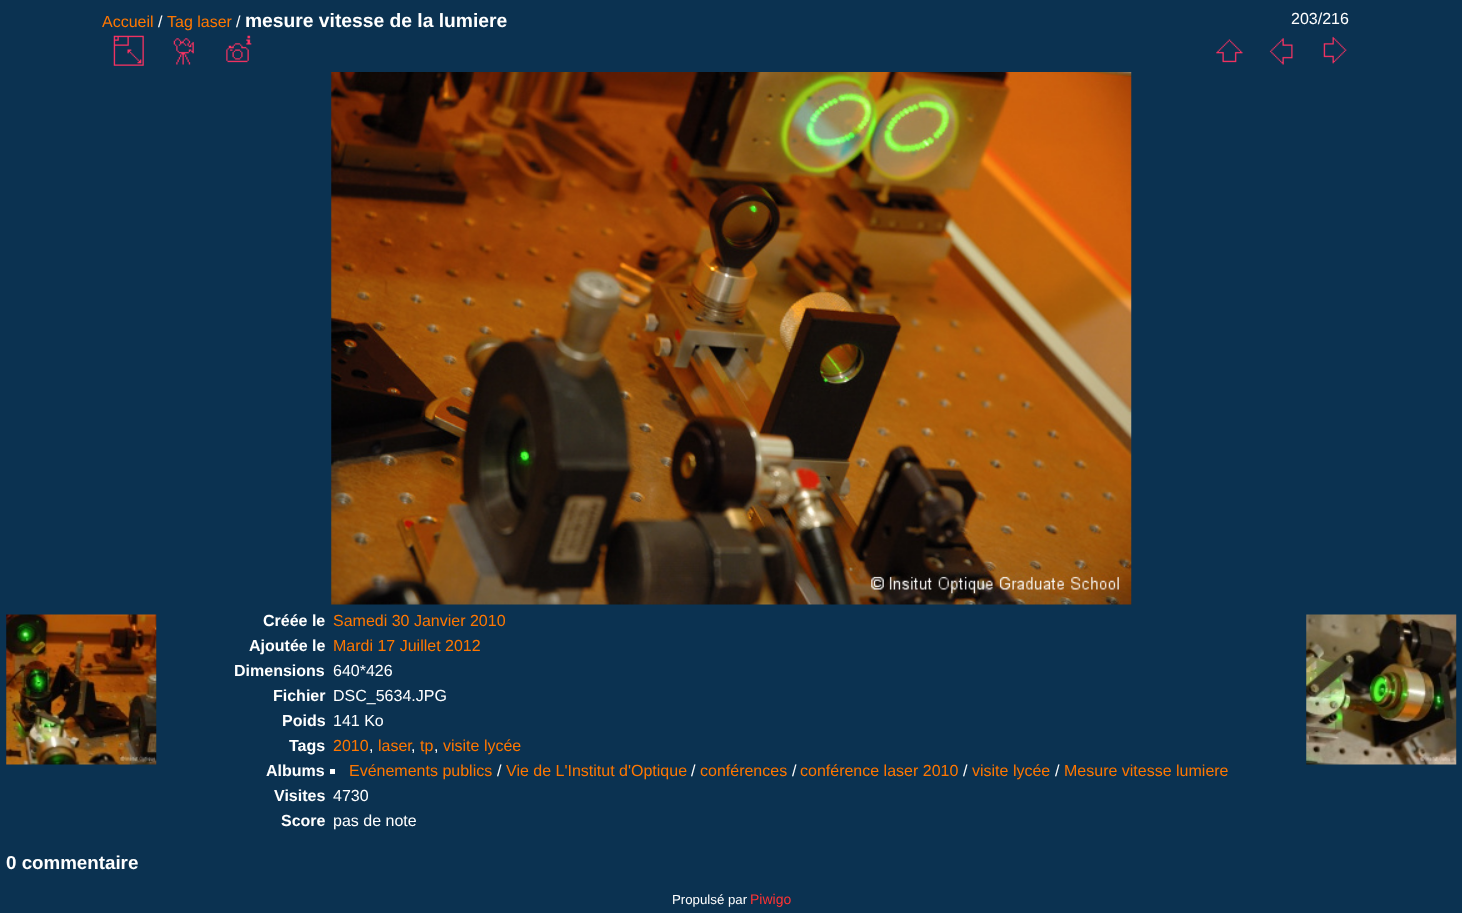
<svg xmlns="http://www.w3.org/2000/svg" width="1462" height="913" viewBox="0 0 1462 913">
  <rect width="100%" height="100%" fill="#0b3251"/>
  <text x="102" y="27" font-family="Liberation Sans" font-size="16" fill="#ff7700">Accueil</text>
  <text x="158" y="27" font-family="Liberation Sans" font-size="16" fill="#ffffff">/</text>
  <text x="167" y="27" font-family="Liberation Sans" font-size="16" fill="#ff7700">Tag laser</text>
  <text x="236" y="27" font-family="Liberation Sans" font-size="16" fill="#ffffff">/</text>
  <text x="245" y="27" font-family="Liberation Sans" font-size="19.25" font-weight="bold" fill="#ffffff">mesure vitesse de la lumiere</text>
  <text x="1291" y="24" font-family="Liberation Sans" font-size="16" fill="#ffffff">203/216</text>
  <image x="113" y="35" width="31" height="31" href="img1.png"/>
  <image x="173" y="38" width="21" height="27" href="img2.png"/>
  <image x="226" y="35" width="26" height="28" href="img3.png"/>
  <image x="1216" y="39" width="27" height="24" href="img4.png"/>
  <image x="1269" y="38" width="24" height="27" href="img5.png"/>
  <image x="1323" y="36" width="24" height="28" href="img6.png"/>
  <image x="331" y="72" width="801" height="533" href="img7.png"/>
  <image x="6" y="614" width="151" height="151" href="img8.png"/>
  <image x="1306" y="614" width="151" height="151" href="img9.png"/>
  <text x="263" y="626" font-family="Liberation Sans" font-size="16" font-weight="bold" fill="#ffffff">Créée le</text>
  <text x="333" y="626" font-family="Liberation Sans" font-size="16" fill="#ff7700">Samedi 30 Janvier 2010</text>
  <text x="249" y="651" font-family="Liberation Sans" font-size="16" font-weight="bold" fill="#ffffff">Ajoutée le</text>
  <text x="333" y="651" font-family="Liberation Sans" font-size="16" fill="#ff7700">Mardi 17 Juillet 2012</text>
  <text x="234" y="676" font-family="Liberation Sans" font-size="16" font-weight="bold" fill="#ffffff">Dimensions</text>
  <text x="333" y="676" font-family="Liberation Sans" font-size="16" fill="#ffffff">640*426</text>
  <text x="273" y="701" font-family="Liberation Sans" font-size="16" font-weight="bold" fill="#ffffff">Fichier</text>
  <text x="333" y="701" font-family="Liberation Sans" font-size="16" fill="#ffffff">DSC_5634.JPG</text>
  <text x="282" y="726" font-family="Liberation Sans" font-size="16" font-weight="bold" fill="#ffffff">Poids</text>
  <text x="333" y="726" font-family="Liberation Sans" font-size="16" fill="#ffffff">141 Ko</text>
  <text x="289" y="751" font-family="Liberation Sans" font-size="16" font-weight="bold" fill="#ffffff">Tags</text>
  <text x="333" y="751" font-family="Liberation Sans" font-size="16" fill="#ff7700">2010</text>
  <text x="369" y="751" font-family="Liberation Sans" font-size="16" fill="#ffffff">,</text>
  <text x="378" y="751" font-family="Liberation Sans" font-size="16" fill="#ff7700">laser</text>
  <text x="411" y="751" font-family="Liberation Sans" font-size="16" fill="#ffffff">,</text>
  <text x="420" y="751" font-family="Liberation Sans" font-size="16" fill="#ff7700">tp</text>
  <text x="434" y="751" font-family="Liberation Sans" font-size="16" fill="#ffffff">,</text>
  <text x="443" y="751" font-family="Liberation Sans" font-size="16" fill="#ff7700">visite lycée</text>
  <text x="266" y="776" font-family="Liberation Sans" font-size="16" font-weight="bold" fill="#ffffff">Albums</text>
  <rect x="330" y="769" width="5" height="5" fill="#ffffff"/>
  <text x="349" y="776" font-family="Liberation Sans" font-size="16" fill="#ff7700">Evénements publics</text>
  <text x="497" y="776" font-family="Liberation Sans" font-size="16" fill="#ffffff">/</text>
  <text x="506" y="776" font-family="Liberation Sans" font-size="16" fill="#ff7700">Vie de L'Institut d'Optique</text>
  <text x="691" y="776" font-family="Liberation Sans" font-size="16" fill="#ffffff">/</text>
  <text x="700" y="776" font-family="Liberation Sans" font-size="16" fill="#ff7700">conférences</text>
  <text x="792" y="776" font-family="Liberation Sans" font-size="16" fill="#ffffff">/</text>
  <text x="800" y="776" font-family="Liberation Sans" font-size="16" fill="#ff7700">conférence laser 2010</text>
  <text x="963" y="776" font-family="Liberation Sans" font-size="16" fill="#ffffff">/</text>
  <text x="972" y="776" font-family="Liberation Sans" font-size="16" fill="#ff7700">visite lycée</text>
  <text x="1055" y="776" font-family="Liberation Sans" font-size="16" fill="#ffffff">/</text>
  <text x="1064" y="776" font-family="Liberation Sans" font-size="16" fill="#ff7700">Mesure vitesse lumiere</text>
  <text x="274" y="801" font-family="Liberation Sans" font-size="16" font-weight="bold" fill="#ffffff">Visites</text>
  <text x="333" y="801" font-family="Liberation Sans" font-size="16" fill="#ffffff">4730</text>
  <text x="281" y="826" font-family="Liberation Sans" font-size="16" font-weight="bold" fill="#ffffff">Score</text>
  <text x="333" y="826" font-family="Liberation Sans" font-size="16" fill="#ffffff">pas de note</text>
  <text x="6" y="869" font-family="Liberation Sans" font-size="18.75" font-weight="bold" fill="#ffffff">0 commentaire</text>
  <text x="672" y="904" font-family="Liberation Sans" font-size="13.25" fill="#ffffff">Propulsé par</text>
  <text x="750" y="904" font-family="Liberation Sans" font-size="14" fill="#ff3333">Piwigo</text>
</svg>
